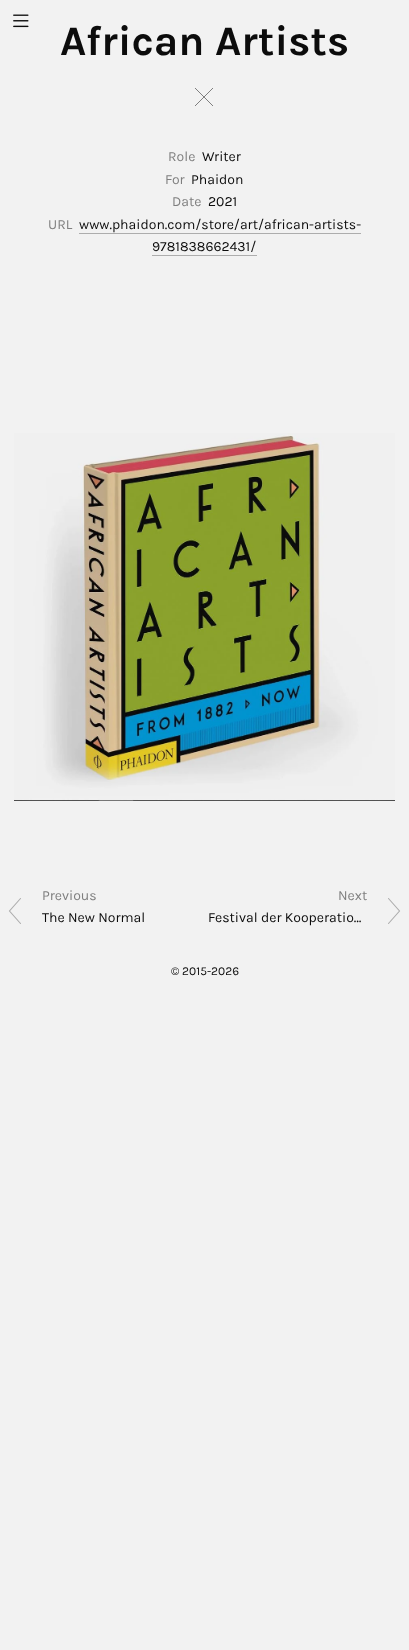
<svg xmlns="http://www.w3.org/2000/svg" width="409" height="1650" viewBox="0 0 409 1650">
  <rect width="100%" height="100%" fill="#f2f2f2"/>
  <image x="13" y="14" width="16" height="14" href="img1.png"/>
  <text x="60" y="55" font-family="Karla" font-size="42" font-weight="bold" fill="#0c0c0c">African Artists</text>
  <path d="M213 106L195 88M213 88L195 106" fill="none" stroke="#7f7f7f"/>
  <text x="168" y="161" font-family="Karla" font-size="14" fill="#7f7f7f">Role</text>
  <text x="202" y="161" font-family="Karla" font-size="14" fill="#0c0c0c">Writer</text>
  <text x="165" y="184" font-family="Karla" font-size="14" fill="#7f7f7f">For</text>
  <text x="191" y="184" font-family="Karla" font-size="14" fill="#0c0c0c">Phaidon</text>
  <text x="172" y="206" font-family="Karla" font-size="14" fill="#7f7f7f">Date</text>
  <text x="208" y="206" font-family="Karla" font-size="14" fill="#0c0c0c">2021</text>
  <text x="48" y="229" font-family="Karla" font-size="14" fill="#7f7f7f">URL</text>
  <text x="79" y="229" font-family="Karla" font-size="14" fill="#0c0c0c">www.phaidon.com/store/art/african-artists-</text>
  <rect x="79" y="233" width="282" height="1" fill="#adadad"/>
  <text x="152" y="251" font-family="Karla" font-size="14" fill="#0c0c0c">9781838662431/</text>
  <rect x="152" y="255" width="105" height="1" fill="#adadad"/>
  <image x="14" y="433" width="381" height="368" href="img2.png"/>
  <text x="42" y="900" font-family="Karla" font-size="14" fill="#7f7f7f">Previous</text>
  <path d="M20.5 898.5L9.5 911L20.5 923.5" fill="none" stroke="#adadad" stroke-width="1.1" stroke-linecap="round"/>
  <text x="42" y="922" font-family="Karla" font-size="14" fill="#0c0c0c">The New Normal</text>
  <text x="338" y="900" font-family="Karla" font-size="14" fill="#7f7f7f">Next</text>
  <text x="208" y="922" font-family="Karla" font-size="14" fill="#0c0c0c">Festival der Kooperatio…</text>
  <path d="M388.5 898.5L399.5 911L388.5 923.5" fill="none" stroke="#adadad" stroke-width="1.1" stroke-linecap="round"/>
  <text x="171" y="975" font-family="Karla" font-size="12" fill="#0c0c0c">© 2015-2026</text>
</svg>
